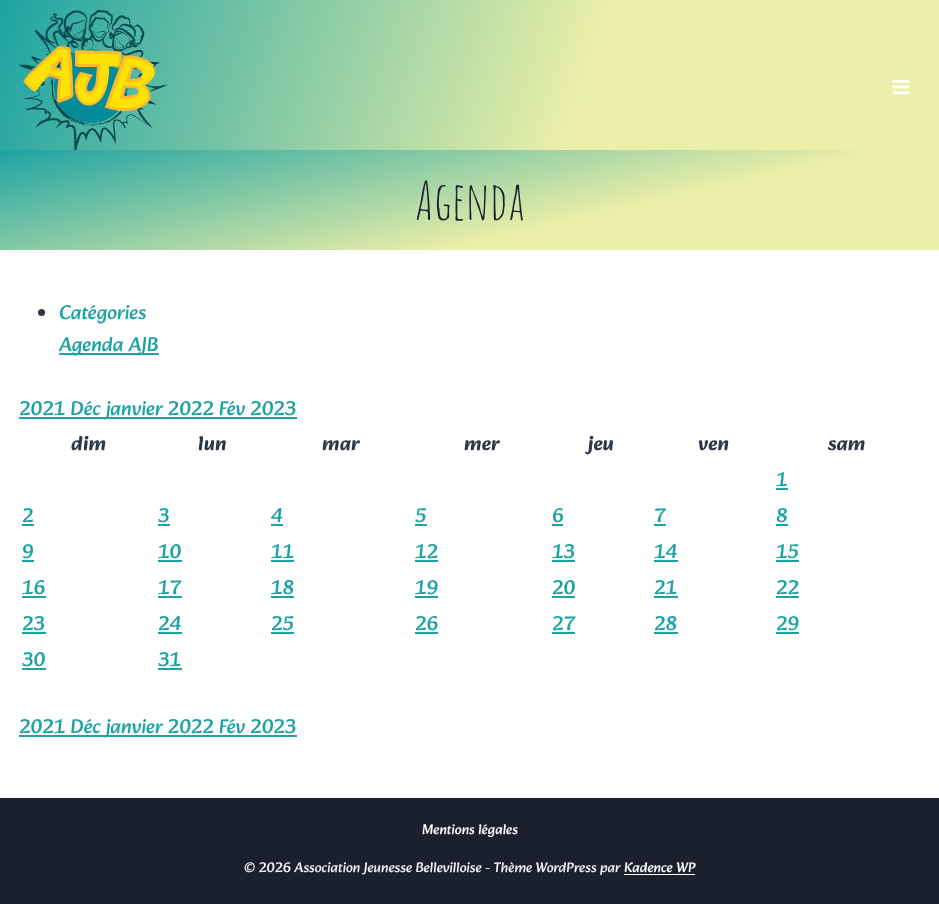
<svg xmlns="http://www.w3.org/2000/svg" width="939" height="904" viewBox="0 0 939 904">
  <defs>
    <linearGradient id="g1" gradientUnits="userSpaceOnUse" x1="916" y1="220" x2="23" y2="-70"><stop offset="0.38" stop-color="#ebefa8"/><stop offset="1" stop-color="#1da3a3"/></linearGradient>
    <linearGradient id="g2" gradientUnits="userSpaceOnUse" x1="504" y1="350" x2="435" y2="50"><stop offset="0.36" stop-color="#ebeea8"/><stop offset="1" stop-color="#1da3a3"/></linearGradient>
  </defs>
  <rect width="100%" height="100%" fill="#ffffff"/>
  <rect x="0" y="0" width="939" height="150" fill="url(#g1)"/>
  <image x="19" y="10" width="150" height="140" href="img1.png"/>
  <image x="892" y="79" width="18" height="16" href="img2.png"/>
  <rect x="0" y="150" width="939" height="100" fill="url(#g2)"/>
  <text x="415" y="220" font-family="Amatic SC" font-size="53" fill="#1a202c">Agenda</text>
  <circle cx="41.5" cy="312.5" r="3.5" fill="#2d3748"/>
  <text x="59" y="319" font-family="Alkatra" font-size="20" fill="#1da3a3">Catégories</text>
  <rect x="59" y="353" width="100" height="2" fill="#1da3a3"/>
  <text x="59" y="351" font-family="Alkatra" font-size="20" fill="#1da3a3">Agenda AJB</text>
  <rect x="19" y="417" width="278" height="2" fill="#1da3a3"/>
  <text x="19" y="415" font-family="Alkatra" font-size="20" fill="#1da3a3">2021 Déc janvier 2022 Fév 2023</text>
  <text x="71" y="450" font-family="Alkatra" font-size="20" font-weight="bold" fill="#2d3748">dim</text>
  <text x="198" y="450" font-family="Alkatra" font-size="20" font-weight="bold" fill="#2d3748">lun</text>
  <text x="322" y="450" font-family="Alkatra" font-size="20" font-weight="bold" fill="#2d3748">mar</text>
  <text x="464" y="450" font-family="Alkatra" font-size="20" font-weight="bold" fill="#2d3748">mer</text>
  <text x="588" y="450" font-family="Alkatra" font-size="20" font-weight="bold" fill="#2d3748">jeu</text>
  <text x="698" y="450" font-family="Alkatra" font-size="20" font-weight="bold" fill="#2d3748">ven</text>
  <text x="828" y="450" font-family="Alkatra" font-size="20" font-weight="bold" fill="#2d3748">sam</text>
  <text x="776" y="486" font-family="Alkatra" font-size="20" fill="#1da3a3">1</text>
  <rect x="776" y="488" width="12" height="2" fill="#1da3a3"/>
  <text x="22" y="522" font-family="Alkatra" font-size="20" fill="#1da3a3">2</text>
  <rect x="22" y="524" width="12" height="2" fill="#1da3a3"/>
  <text x="158" y="522" font-family="Alkatra" font-size="20" fill="#1da3a3">3</text>
  <rect x="158" y="524" width="12" height="2" fill="#1da3a3"/>
  <text x="271" y="522" font-family="Alkatra" font-size="20" fill="#1da3a3">4</text>
  <rect x="271" y="524" width="12" height="2" fill="#1da3a3"/>
  <text x="415" y="522" font-family="Alkatra" font-size="20" fill="#1da3a3">5</text>
  <rect x="415" y="524" width="12" height="2" fill="#1da3a3"/>
  <text x="552" y="522" font-family="Alkatra" font-size="20" fill="#1da3a3">6</text>
  <rect x="552" y="524" width="11" height="2" fill="#1da3a3"/>
  <text x="654" y="522" font-family="Alkatra" font-size="20" fill="#1da3a3">7</text>
  <rect x="654" y="524" width="12" height="2" fill="#1da3a3"/>
  <text x="776" y="522" font-family="Alkatra" font-size="20" fill="#1da3a3">8</text>
  <rect x="776" y="524" width="12" height="2" fill="#1da3a3"/>
  <text x="22" y="558" font-family="Alkatra" font-size="20" fill="#1da3a3">9</text>
  <rect x="22" y="560" width="12" height="2" fill="#1da3a3"/>
  <text x="158" y="558" font-family="Alkatra" font-size="20" fill="#1da3a3">10</text>
  <rect x="158" y="560" width="24" height="2" fill="#1da3a3"/>
  <text x="271" y="558" font-family="Alkatra" font-size="20" fill="#1da3a3">11</text>
  <rect x="271" y="560" width="23" height="2" fill="#1da3a3"/>
  <text x="415" y="558" font-family="Alkatra" font-size="20" fill="#1da3a3">12</text>
  <rect x="415" y="560" width="23" height="2" fill="#1da3a3"/>
  <text x="552" y="558" font-family="Alkatra" font-size="20" fill="#1da3a3">13</text>
  <rect x="552" y="560" width="23" height="2" fill="#1da3a3"/>
  <text x="654" y="558" font-family="Alkatra" font-size="20" fill="#1da3a3">14</text>
  <rect x="654" y="560" width="24" height="2" fill="#1da3a3"/>
  <text x="776" y="558" font-family="Alkatra" font-size="20" fill="#1da3a3">15</text>
  <rect x="776" y="560" width="23" height="2" fill="#1da3a3"/>
  <text x="22" y="594" font-family="Alkatra" font-size="20" fill="#1da3a3">16</text>
  <rect x="22" y="596" width="24" height="2" fill="#1da3a3"/>
  <text x="158" y="594" font-family="Alkatra" font-size="20" fill="#1da3a3">17</text>
  <rect x="158" y="596" width="24" height="2" fill="#1da3a3"/>
  <text x="271" y="594" font-family="Alkatra" font-size="20" fill="#1da3a3">18</text>
  <rect x="271" y="596" width="23" height="2" fill="#1da3a3"/>
  <text x="415" y="594" font-family="Alkatra" font-size="20" fill="#1da3a3">19</text>
  <rect x="415" y="596" width="23" height="2" fill="#1da3a3"/>
  <text x="552" y="594" font-family="Alkatra" font-size="20" fill="#1da3a3">20</text>
  <rect x="552" y="596" width="23" height="2" fill="#1da3a3"/>
  <text x="654" y="594" font-family="Alkatra" font-size="20" fill="#1da3a3">21</text>
  <rect x="654" y="596" width="24" height="2" fill="#1da3a3"/>
  <text x="776" y="594" font-family="Alkatra" font-size="20" fill="#1da3a3">22</text>
  <rect x="776" y="596" width="23" height="2" fill="#1da3a3"/>
  <text x="22" y="630" font-family="Alkatra" font-size="20" fill="#1da3a3">23</text>
  <rect x="22" y="632" width="24" height="2" fill="#1da3a3"/>
  <text x="158" y="630" font-family="Alkatra" font-size="20" fill="#1da3a3">24</text>
  <rect x="158" y="632" width="24" height="2" fill="#1da3a3"/>
  <text x="271" y="630" font-family="Alkatra" font-size="20" fill="#1da3a3">25</text>
  <rect x="271" y="632" width="23" height="2" fill="#1da3a3"/>
  <text x="415" y="630" font-family="Alkatra" font-size="20" fill="#1da3a3">26</text>
  <rect x="415" y="632" width="23" height="2" fill="#1da3a3"/>
  <text x="552" y="630" font-family="Alkatra" font-size="20" fill="#1da3a3">27</text>
  <rect x="552" y="632" width="23" height="2" fill="#1da3a3"/>
  <text x="654" y="630" font-family="Alkatra" font-size="20" fill="#1da3a3">28</text>
  <rect x="654" y="632" width="24" height="2" fill="#1da3a3"/>
  <text x="776" y="630" font-family="Alkatra" font-size="20" fill="#1da3a3">29</text>
  <rect x="776" y="632" width="23" height="2" fill="#1da3a3"/>
  <text x="22" y="666" font-family="Alkatra" font-size="20" fill="#1da3a3">30</text>
  <rect x="22" y="668" width="24" height="2" fill="#1da3a3"/>
  <text x="158" y="666" font-family="Alkatra" font-size="20" fill="#1da3a3">31</text>
  <rect x="158" y="668" width="24" height="2" fill="#1da3a3"/>
  <rect x="19" y="735" width="278" height="2" fill="#1da3a3"/>
  <text x="19" y="733" font-family="Alkatra" font-size="20" fill="#1da3a3">2021 Déc janvier 2022 Fév 2023</text>
  <rect x="0" y="798" width="939" height="106" fill="#1a202c"/>
  <text x="422" y="834" font-family="Alkatra" font-size="14" fill="#ffffff">Mentions légales</text>
  <text x="244" y="872" font-family="Alkatra" font-size="14" fill="#edf2f7">© 2026 Association Jeunesse Bellevilloise - Thème WordPress par</text>
  <text x="624" y="872" font-family="Alkatra" font-size="14" fill="#ffffff">Kadence WP</text>
  <rect x="624" y="874" width="71" height="1" fill="#ffffff"/>
</svg>
